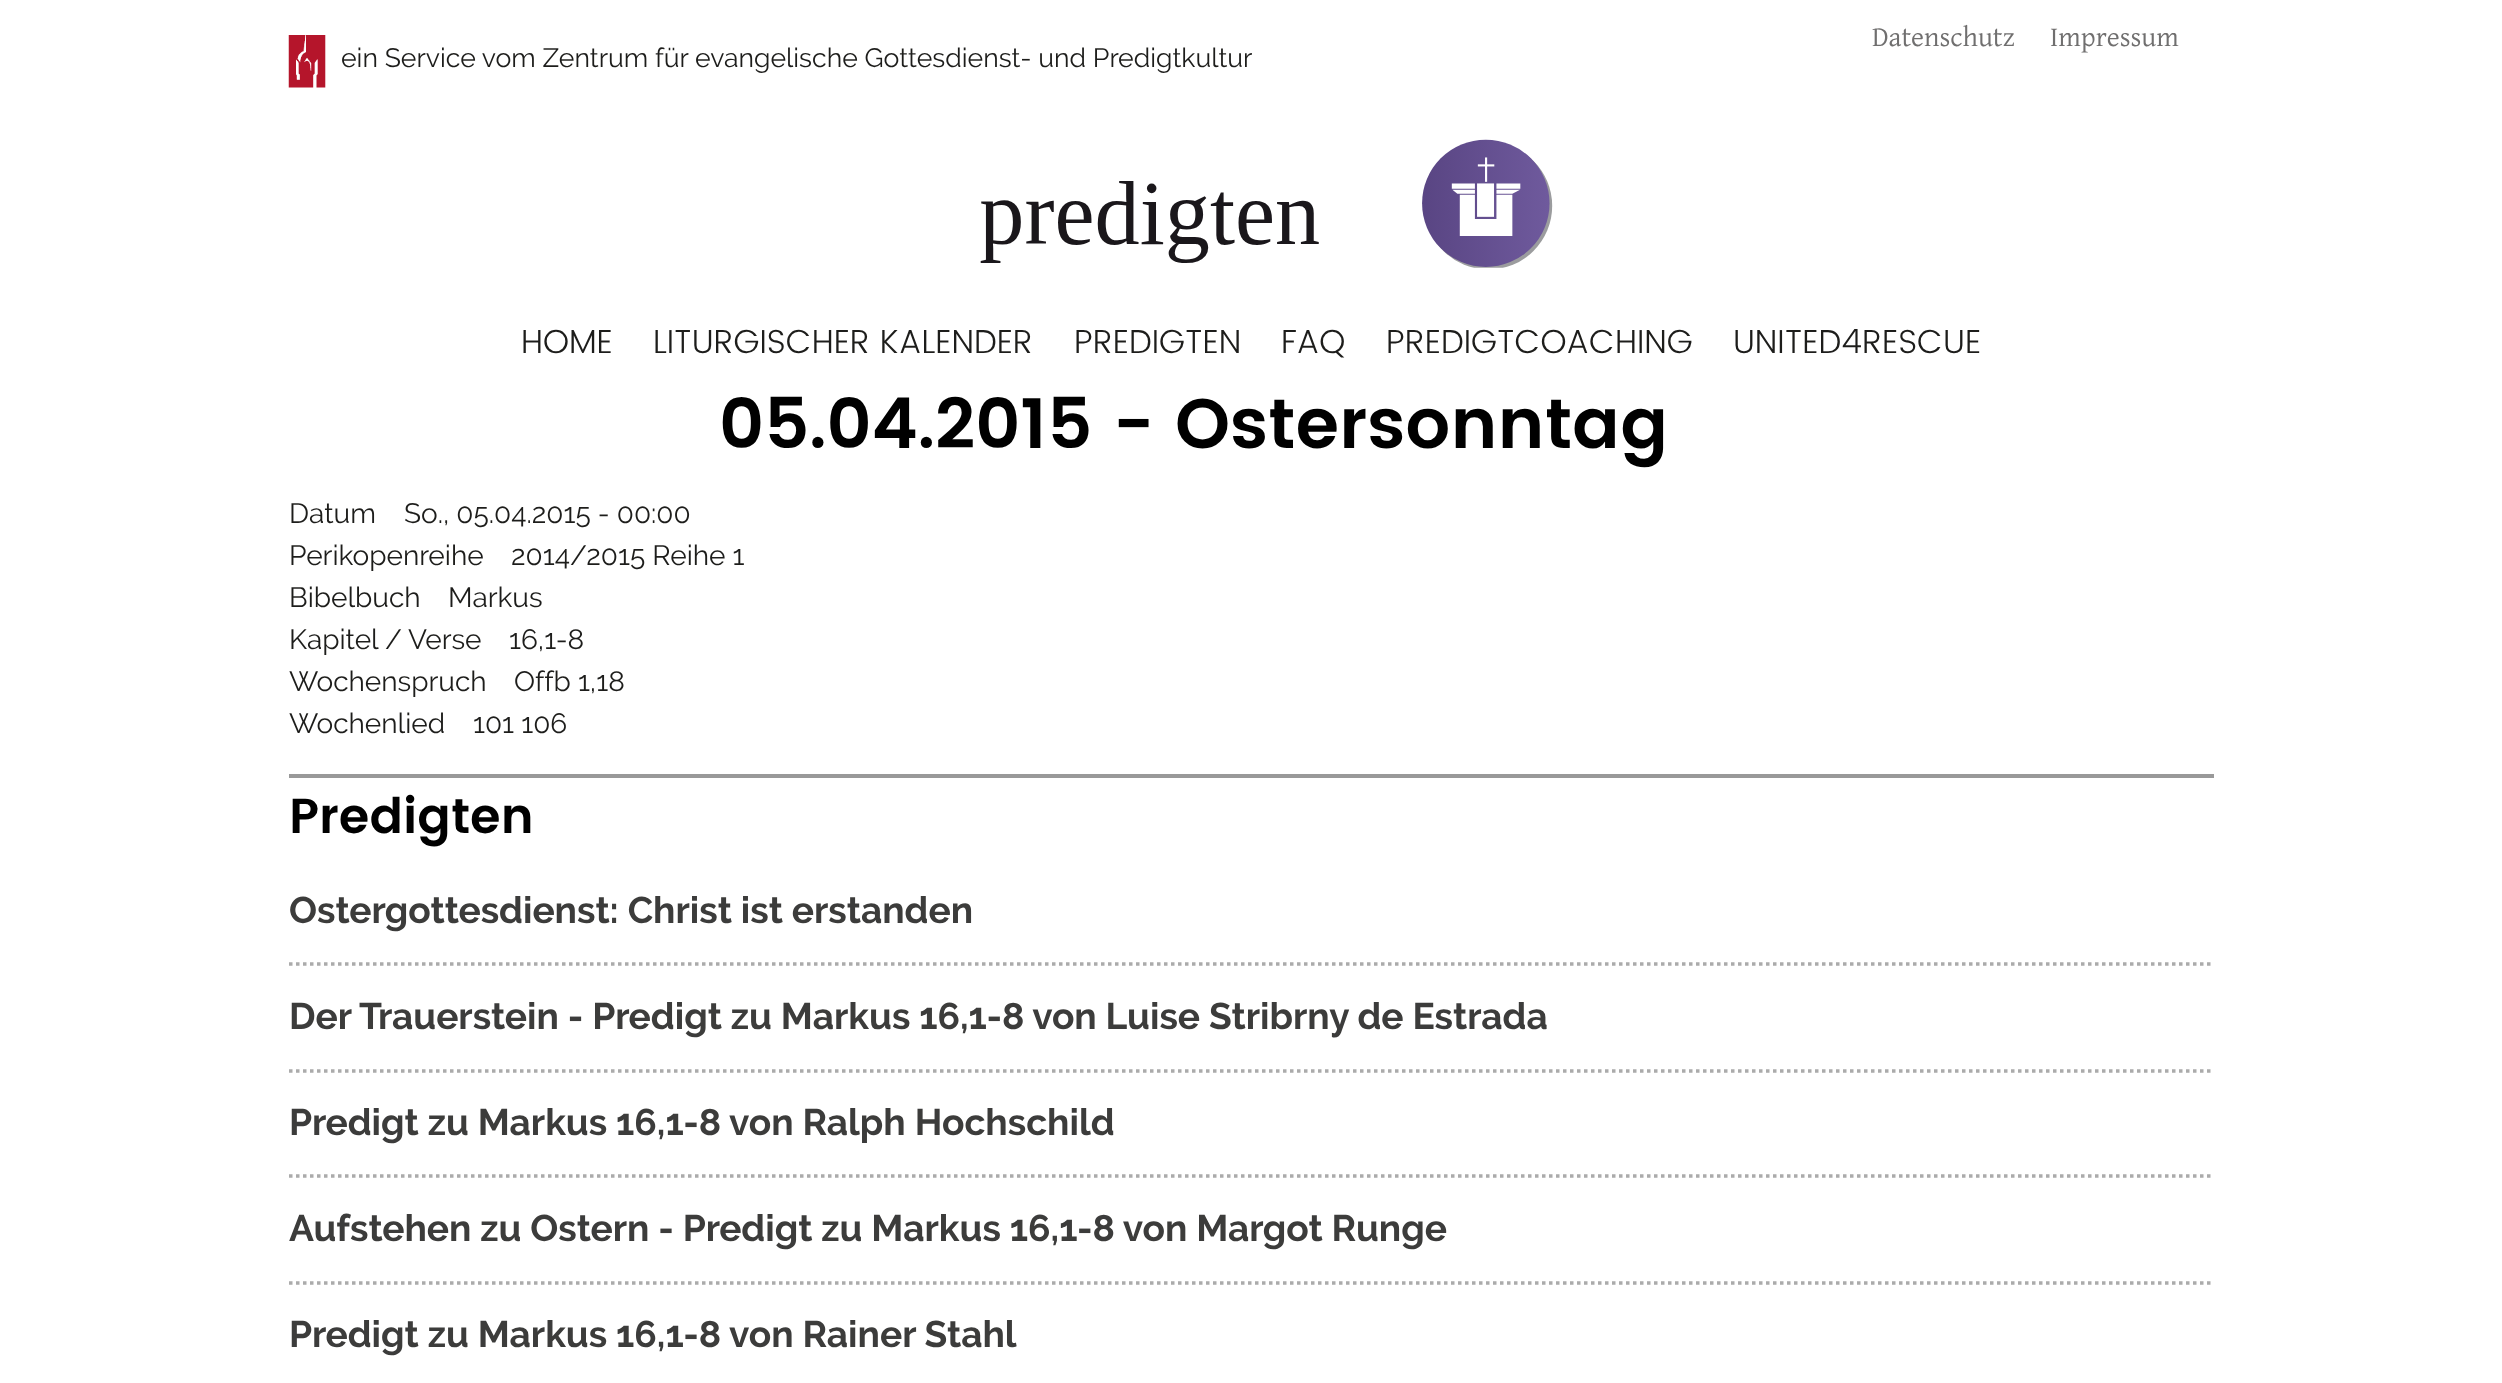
<svg xmlns="http://www.w3.org/2000/svg" width="2502" height="1383" viewBox="0 0 2502 1383">
  <rect width="100%" height="100%" fill="#ffffff"/>
  <text x="1872" y="46" font-family="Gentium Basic" font-size="28" fill="#706f6f">Datenschutz</text>
  <text x="2050" y="46" font-family="Gentium Basic" font-size="28" fill="#706f6f">Impressum</text>
  <image x="288" y="35" width="38" height="53" href="img1.png"/>
  <text x="341" y="67" font-family="Raleway" font-size="26.6" fill="#1d1d1b">ein Service vom Zentrum für evangelische Gottesdienst- und Predigtkultur</text>
  <image x="980" y="139" width="573" height="129" href="img2.png"/>
  <text x="521" y="353" font-family="Poppins" font-size="33.25" font-weight="300" fill="#1d1d1b">HOME</text>
  <text x="653" y="353" font-family="Poppins" font-size="33.25" font-weight="300" fill="#1d1d1b">LITURGISCHER KALENDER</text>
  <text x="1074" y="353" font-family="Poppins" font-size="33.25" font-weight="300" fill="#1d1d1b">PREDIGTEN</text>
  <text x="1281" y="353" font-family="Poppins" font-size="33.25" font-weight="300" fill="#1d1d1b">FAQ</text>
  <text x="1386" y="353" font-family="Poppins" font-size="33.25" font-weight="300" fill="#1d1d1b">PREDIGTCOACHING</text>
  <text x="1733" y="353" font-family="Poppins" font-size="33.25" font-weight="300" fill="#1d1d1b">UNITED4RESCUE</text>
  <text x="719" y="448" font-family="Poppins" font-size="70" font-weight="600" fill="#000000">05.04.2015 - Ostersonntag</text>
  <text x="289" y="523" font-family="Raleway" font-size="28" fill="#1d1d1b">Datum</text>
  <text x="404" y="523" font-family="Raleway" font-size="28" fill="#1d1d1b">So., 05.04.2015 - 00:00</text>
  <text x="289" y="565" font-family="Raleway" font-size="28" fill="#1d1d1b">Perikopenreihe</text>
  <text x="511" y="565" font-family="Raleway" font-size="28" fill="#1d1d1b">2014/2015 Reihe 1</text>
  <text x="289" y="607" font-family="Raleway" font-size="28" fill="#1d1d1b">Bibelbuch</text>
  <text x="448" y="607" font-family="Raleway" font-size="28" fill="#1d1d1b">Markus</text>
  <text x="289" y="649" font-family="Raleway" font-size="28" fill="#1d1d1b">Kapitel / Verse</text>
  <text x="509" y="649" font-family="Raleway" font-size="28" fill="#1d1d1b">16,1-8</text>
  <text x="289" y="691" font-family="Raleway" font-size="28" fill="#1d1d1b">Wochenspruch</text>
  <text x="514" y="691" font-family="Raleway" font-size="28" fill="#1d1d1b">Offb 1,18</text>
  <text x="289" y="733" font-family="Raleway" font-size="28" fill="#1d1d1b">Wochenlied</text>
  <text x="473" y="733" font-family="Raleway" font-size="28" fill="#1d1d1b">101 106</text>
  <rect x="289" y="774" width="1925" height="4" fill="#999999"/>
  <text x="289" y="833" font-family="Poppins" font-size="49" font-weight="600" fill="#000000">Predigten</text>
  <path d="M289 964H2214" fill="none" stroke="#ababab" stroke-width="3.5" stroke-dasharray="3.5 3.5"/>
  <text x="289" y="923" font-family="Raleway" font-size="37.1" font-weight="bold" fill="#3c3c3b">Ostergottesdienst: Christ ist erstanden</text>
  <path d="M289 1071H2214" fill="none" stroke="#ababab" stroke-width="3.5" stroke-dasharray="3.5 3.5"/>
  <text x="289" y="1029" font-family="Raleway" font-size="37.1" font-weight="bold" fill="#3c3c3b">Der Trauerstein - Predigt zu Markus 16,1-8 von Luise Stribrny de Estrada</text>
  <path d="M289 1176H2214" fill="none" stroke="#ababab" stroke-width="3.5" stroke-dasharray="3.5 3.5"/>
  <text x="289" y="1135" font-family="Raleway" font-size="37.1" font-weight="bold" fill="#3c3c3b">Predigt zu Markus 16,1-8 von Ralph Hochschild</text>
  <path d="M289 1283H2214" fill="none" stroke="#ababab" stroke-width="3.5" stroke-dasharray="3.5 3.5"/>
  <text x="289" y="1241" font-family="Raleway" font-size="37.1" font-weight="bold" fill="#3c3c3b">Aufstehen zu Ostern - Predigt zu Markus 16,1-8 von Margot Runge</text>
  <text x="289" y="1347" font-family="Raleway" font-size="37.1" font-weight="bold" fill="#3c3c3b">Predigt zu Markus 16,1-8 von Rainer Stahl</text>
</svg>
